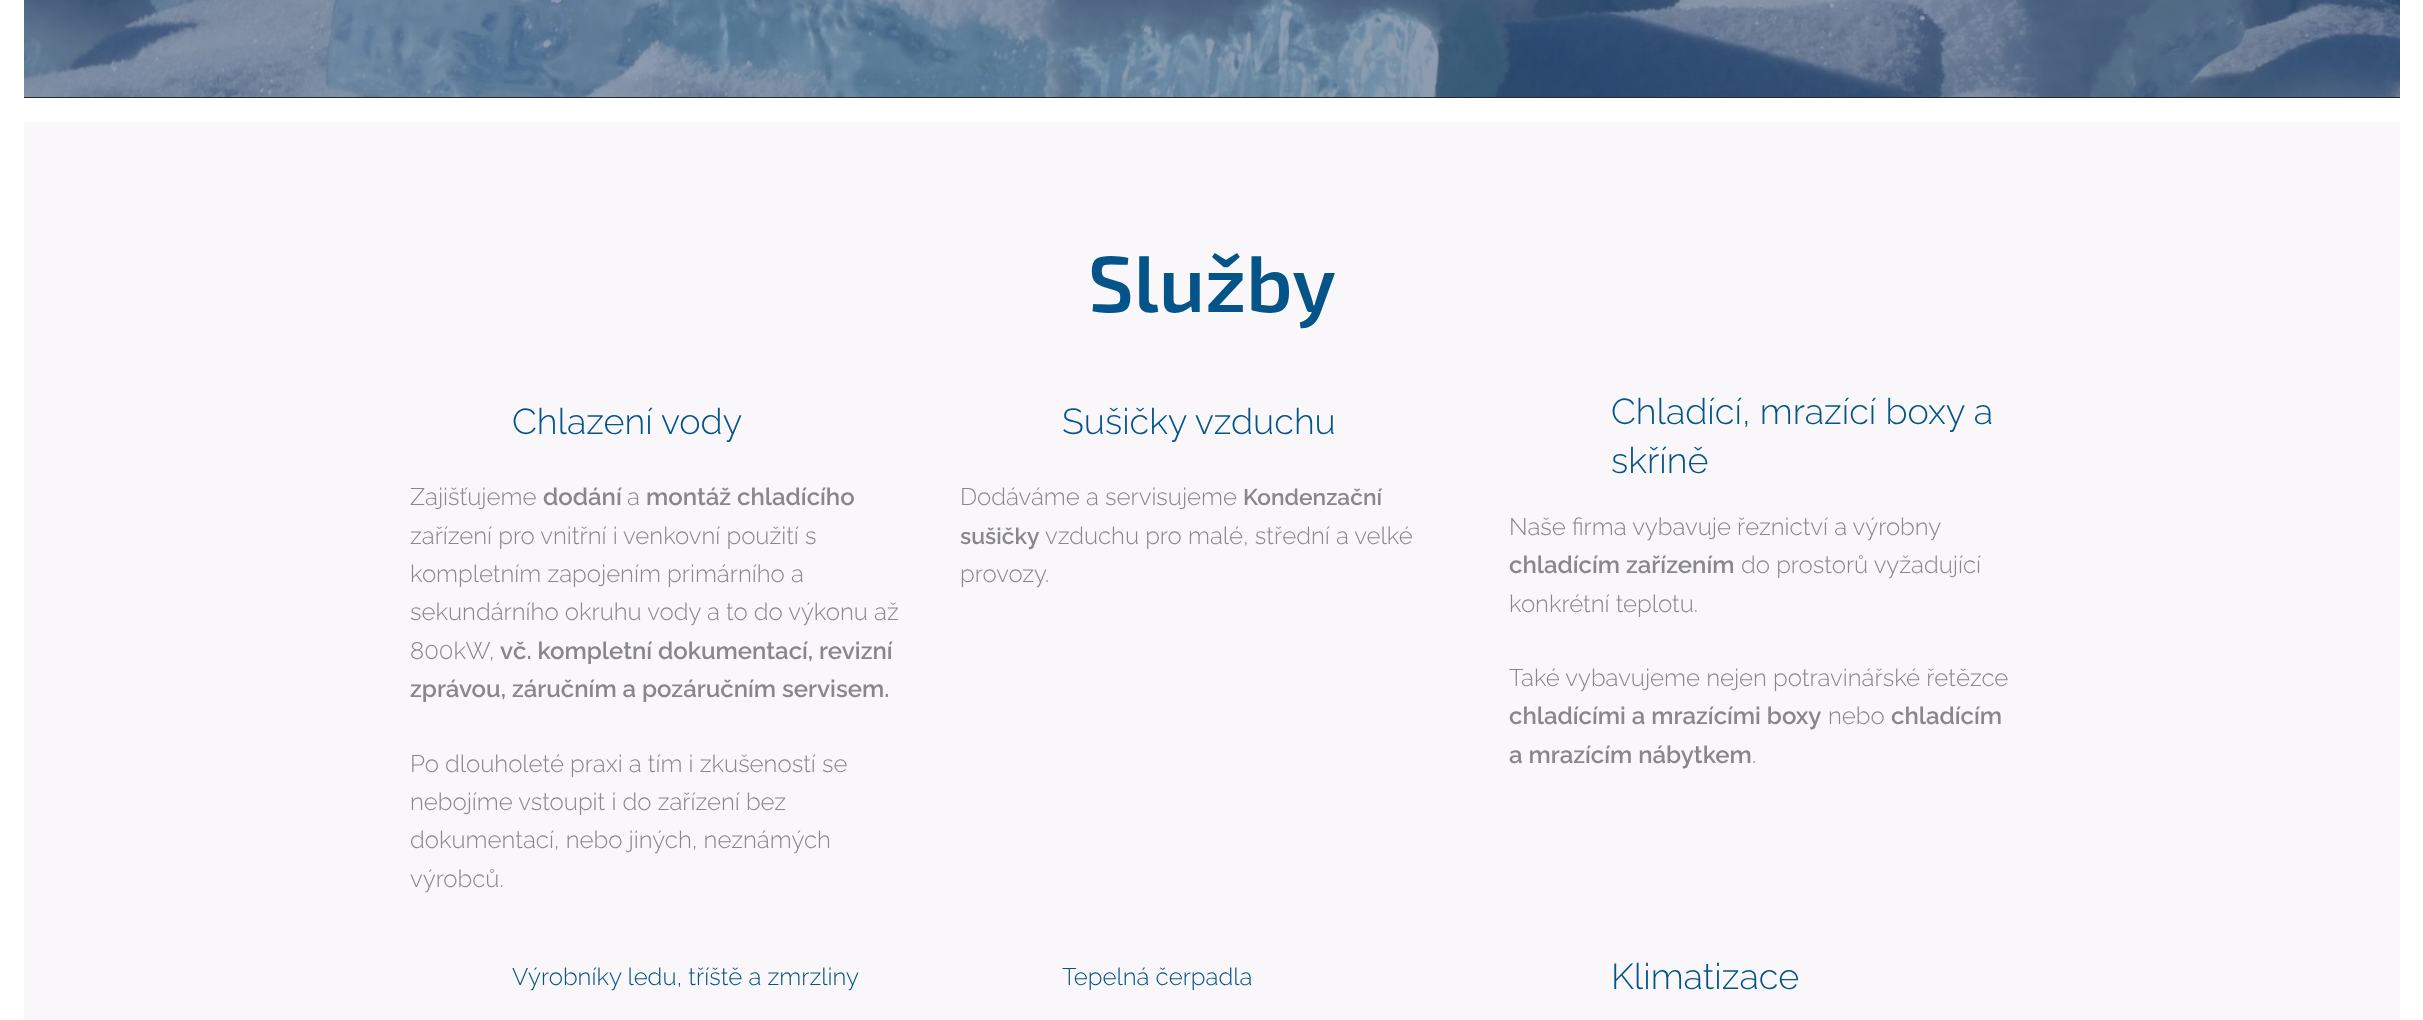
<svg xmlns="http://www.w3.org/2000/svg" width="2423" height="1020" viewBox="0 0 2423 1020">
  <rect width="100%" height="100%" fill="#ffffff"/>
  <rect x="24" y="97" width="2376" height="1" fill="#272727"/>
  <image x="24" y="0" width="2376" height="97" href="img1.png"/>
  <rect x="24" y="122" width="2376" height="898" fill="#f9f7fa"/>
  <text x="1088" y="312" font-family="'Exo 2'" font-size="79.5" font-weight="600" fill="#045389">Služby</text>
  <text x="512" y="434" font-family="Raleway" font-size="36" font-weight="300" fill="#045389">Chlazení vody</text>
  <text x="410" y="505" font-family="Raleway" font-size="24" font-weight="300" fill="#888888">Zajišťujeme</text>
  <text x="543" y="505" font-family="Raleway" font-size="24" font-weight="600" fill="#888888">dodání</text>
  <text x="627" y="505" font-family="Raleway" font-size="24" font-weight="300" fill="#888888">a</text>
  <text x="646" y="505" font-family="Raleway" font-size="24" font-weight="600" fill="#888888">montáž chladícího</text>
  <text x="410" y="544" font-family="Raleway" font-size="24" font-weight="300" fill="#888888">zařízení pro vnitřní i venkovní použití s</text>
  <text x="410" y="582" font-family="Raleway" font-size="24" font-weight="300" fill="#888888">kompletním zapojením primárního a</text>
  <text x="410" y="620" font-family="Raleway" font-size="24" font-weight="300" fill="#888888">sekundárního okruhu vody a to do výkonu až</text>
  <text x="410" y="659" font-family="Raleway" font-size="24" font-weight="300" fill="#888888">800kW,</text>
  <text x="500" y="659" font-family="Raleway" font-size="24" font-weight="600" fill="#888888">vč. kompletní dokumentací, revizní</text>
  <text x="410" y="697" font-family="Raleway" font-size="24" font-weight="600" fill="#888888">zprávou, záručním a pozáručním servisem.</text>
  <text x="410" y="772" font-family="Raleway" font-size="24" font-weight="300" fill="#888888">Po dlouholeté praxi a tím i zkušeností se</text>
  <text x="410" y="810" font-family="Raleway" font-size="24" font-weight="300" fill="#888888">nebojíme vstoupit i do zařízení bez</text>
  <text x="410" y="848" font-family="Raleway" font-size="24" font-weight="300" fill="#888888">dokumentací, nebo jiných, neznámých</text>
  <text x="410" y="887" font-family="Raleway" font-size="24" font-weight="300" fill="#888888">výrobců.</text>
  <text x="1062" y="434" font-family="Raleway" font-size="36" font-weight="300" fill="#045389">Sušičky vzduchu</text>
  <text x="960" y="505" font-family="Raleway" font-size="24" font-weight="300" fill="#888888">Dodáváme a servisujeme</text>
  <text x="1243" y="505" font-family="Raleway" font-size="22.75" font-weight="600" fill="#888888">Kondenzační</text>
  <text x="960" y="544" font-family="Raleway" font-size="22.75" font-weight="600" fill="#888888">sušičky</text>
  <text x="1045" y="544" font-family="Raleway" font-size="24" font-weight="300" fill="#888888">vzduchu pro malé, střední a velké</text>
  <text x="960" y="582" font-family="Raleway" font-size="24" font-weight="300" fill="#888888">provozy.</text>
  <text x="1611" y="424" font-family="Raleway" font-size="36" font-weight="300" fill="#045389">Chladící, mrazící boxy a</text>
  <text x="1611" y="473" font-family="Raleway" font-size="36" font-weight="300" fill="#045389">skříně</text>
  <text x="1509" y="535" font-family="Raleway" font-size="24" font-weight="300" fill="#888888">Naše firma vybavuje řeznictví a výrobny</text>
  <text x="1509" y="573" font-family="Raleway" font-size="24" font-weight="600" fill="#888888">chladícím zařízením</text>
  <text x="1741" y="573" font-family="Raleway" font-size="24" font-weight="300" fill="#888888">do prostorů vyžadující</text>
  <text x="1509" y="612" font-family="Raleway" font-size="24" font-weight="300" fill="#888888">konkrétní teplotu.</text>
  <text x="1509" y="686" font-family="Raleway" font-size="24" font-weight="300" fill="#888888">Také vybavujeme nejen potravinářské řetězce</text>
  <text x="1509" y="724" font-family="Raleway" font-size="24" font-weight="600" fill="#888888">chladícími a mrazícími boxy</text>
  <text x="1828" y="724" font-family="Raleway" font-size="24" font-weight="300" fill="#888888">nebo</text>
  <text x="1891" y="724" font-family="Raleway" font-size="24" font-weight="600" fill="#888888">chladícím</text>
  <text x="1509" y="763" font-family="Raleway" font-size="24" font-weight="600" fill="#888888">a mrazícím nábytkem</text>
  <text x="1752" y="763" font-family="Raleway" font-size="24" font-weight="300" fill="#888888">.</text>
  <text x="512" y="985" font-family="Raleway" font-size="24" font-weight="300" fill="#045389">Výrobníky ledu, tříště a zmrzliny</text>
  <text x="1062" y="985" font-family="Raleway" font-size="24" font-weight="300" fill="#045389">Tepelná čerpadla</text>
  <text x="1611" y="989" font-family="Raleway" font-size="36" font-weight="300" fill="#045389">Klimatizace</text>
</svg>
